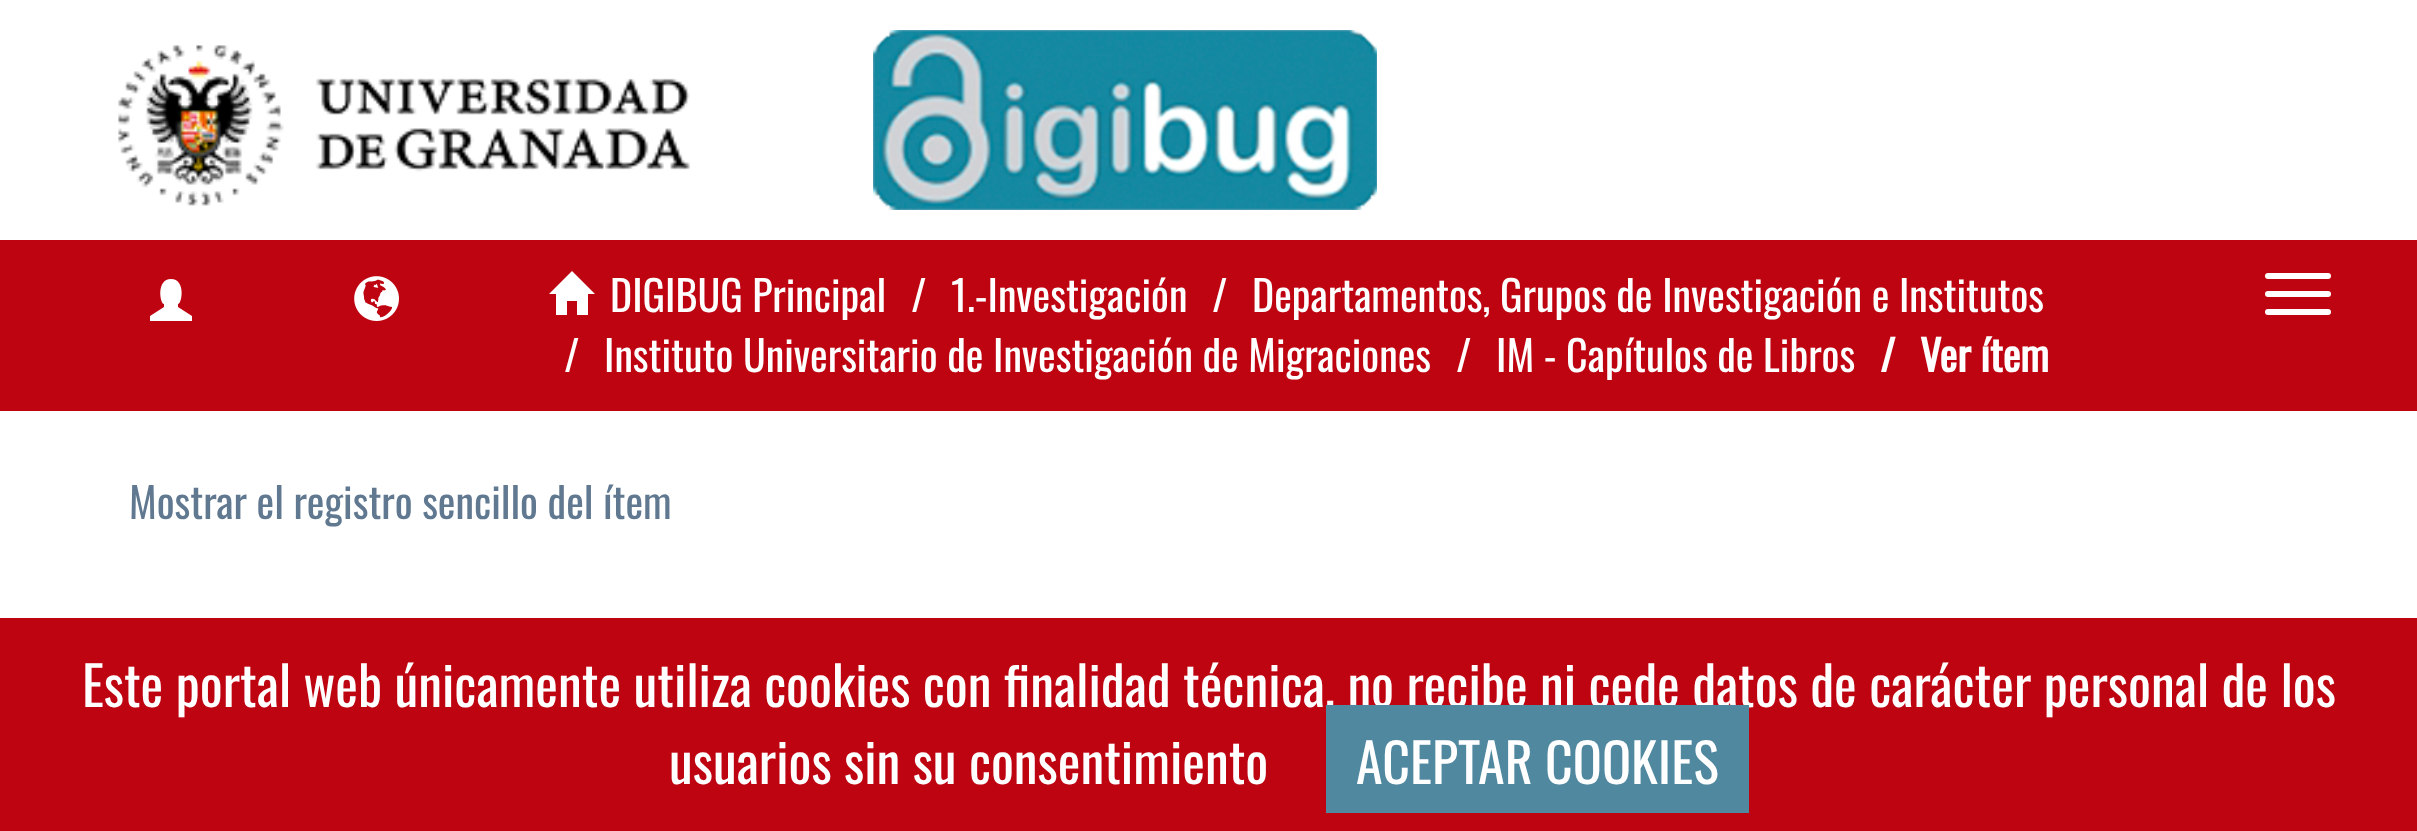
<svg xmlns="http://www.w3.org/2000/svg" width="2417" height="831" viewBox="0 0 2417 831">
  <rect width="100%" height="100%" fill="#ffffff"/>
  <image x="118" y="45" width="572" height="161" href="img1.png"/>
  <image x="873" y="30" width="504" height="180" href="img2.png"/>
  <rect x="0" y="240" width="2417" height="171" fill="#bf0411"/>
  <path d="M150 321V316L164 307V304C160 304 156 279 171 279C186 279 182 304 178 304V307L192 316V321Z" fill="#ffffff"/>
  <image x="354" y="276" width="45" height="45" href="img3.png"/>
  <path d="M549 294L572 271L595 294H588V315H577V301H567V315H556V294Z" fill="#ffffff"/>
  <text x="610" y="312" font-family="Oswald" font-size="42" fill="#ffffff">DIGIBUG Principal</text>
  <text x="911" y="312" font-family="Oswald" font-size="42" fill="#ffffff">/</text>
  <text x="951" y="312" font-family="Oswald" font-size="42" fill="#ffffff">1.-Investigación</text>
  <text x="1212" y="312" font-family="Oswald" font-size="42" fill="#ffffff">/</text>
  <text x="1252" y="312" font-family="Oswald" font-size="42" fill="#ffffff">Departamentos, Grupos de Investigación e Institutos</text>
  <text x="564" y="372" font-family="Oswald" font-size="42" fill="#ffffff">/</text>
  <text x="604" y="372" font-family="Oswald" font-size="42" fill="#ffffff">Instituto Universitario de Investigación de Migraciones</text>
  <text x="1456" y="372" font-family="Oswald" font-size="42" fill="#ffffff">/</text>
  <text x="1496" y="372" font-family="Oswald" font-size="42" fill="#ffffff">IM - Capítulos de Libros</text>
  <text x="1880" y="372" font-family="Oswald" font-size="42" font-weight="bold" fill="#ffffff">/</text>
  <text x="1920" y="372" font-family="Oswald" font-size="42" font-weight="bold" fill="#ffffff">Ver ítem</text>
  <rect x="2265" y="273" width="66" height="6" rx="3" fill="#ffffff"/>
  <rect x="2265" y="291" width="66" height="6" rx="3" fill="#ffffff"/>
  <rect x="2265" y="309" width="66" height="6" rx="3" fill="#ffffff"/>
  <text x="129" y="519" font-family="Oswald" font-size="42" fill="#607890">Mostrar el registro sencillo del ítem</text>
  <rect x="0" y="618" width="2417" height="213" fill="#bf0411"/>
  <text x="82" y="707" font-family="Oswald" font-size="54" fill="#ffffff">Este portal web únicamente utiliza cookies con finalidad técnica, no recibe ni cede datos de carácter personal de los</text>
  <text x="669" y="784" font-family="Oswald" font-size="54" fill="#ffffff">usuarios sin su consentimiento</text>
  <rect x="1326" y="705" width="423" height="108" fill="#5088a0"/>
  <text x="1356" y="784" font-family="Oswald" font-size="54" fill="#ffffff">ACEPTAR COOKIES</text>
</svg>
